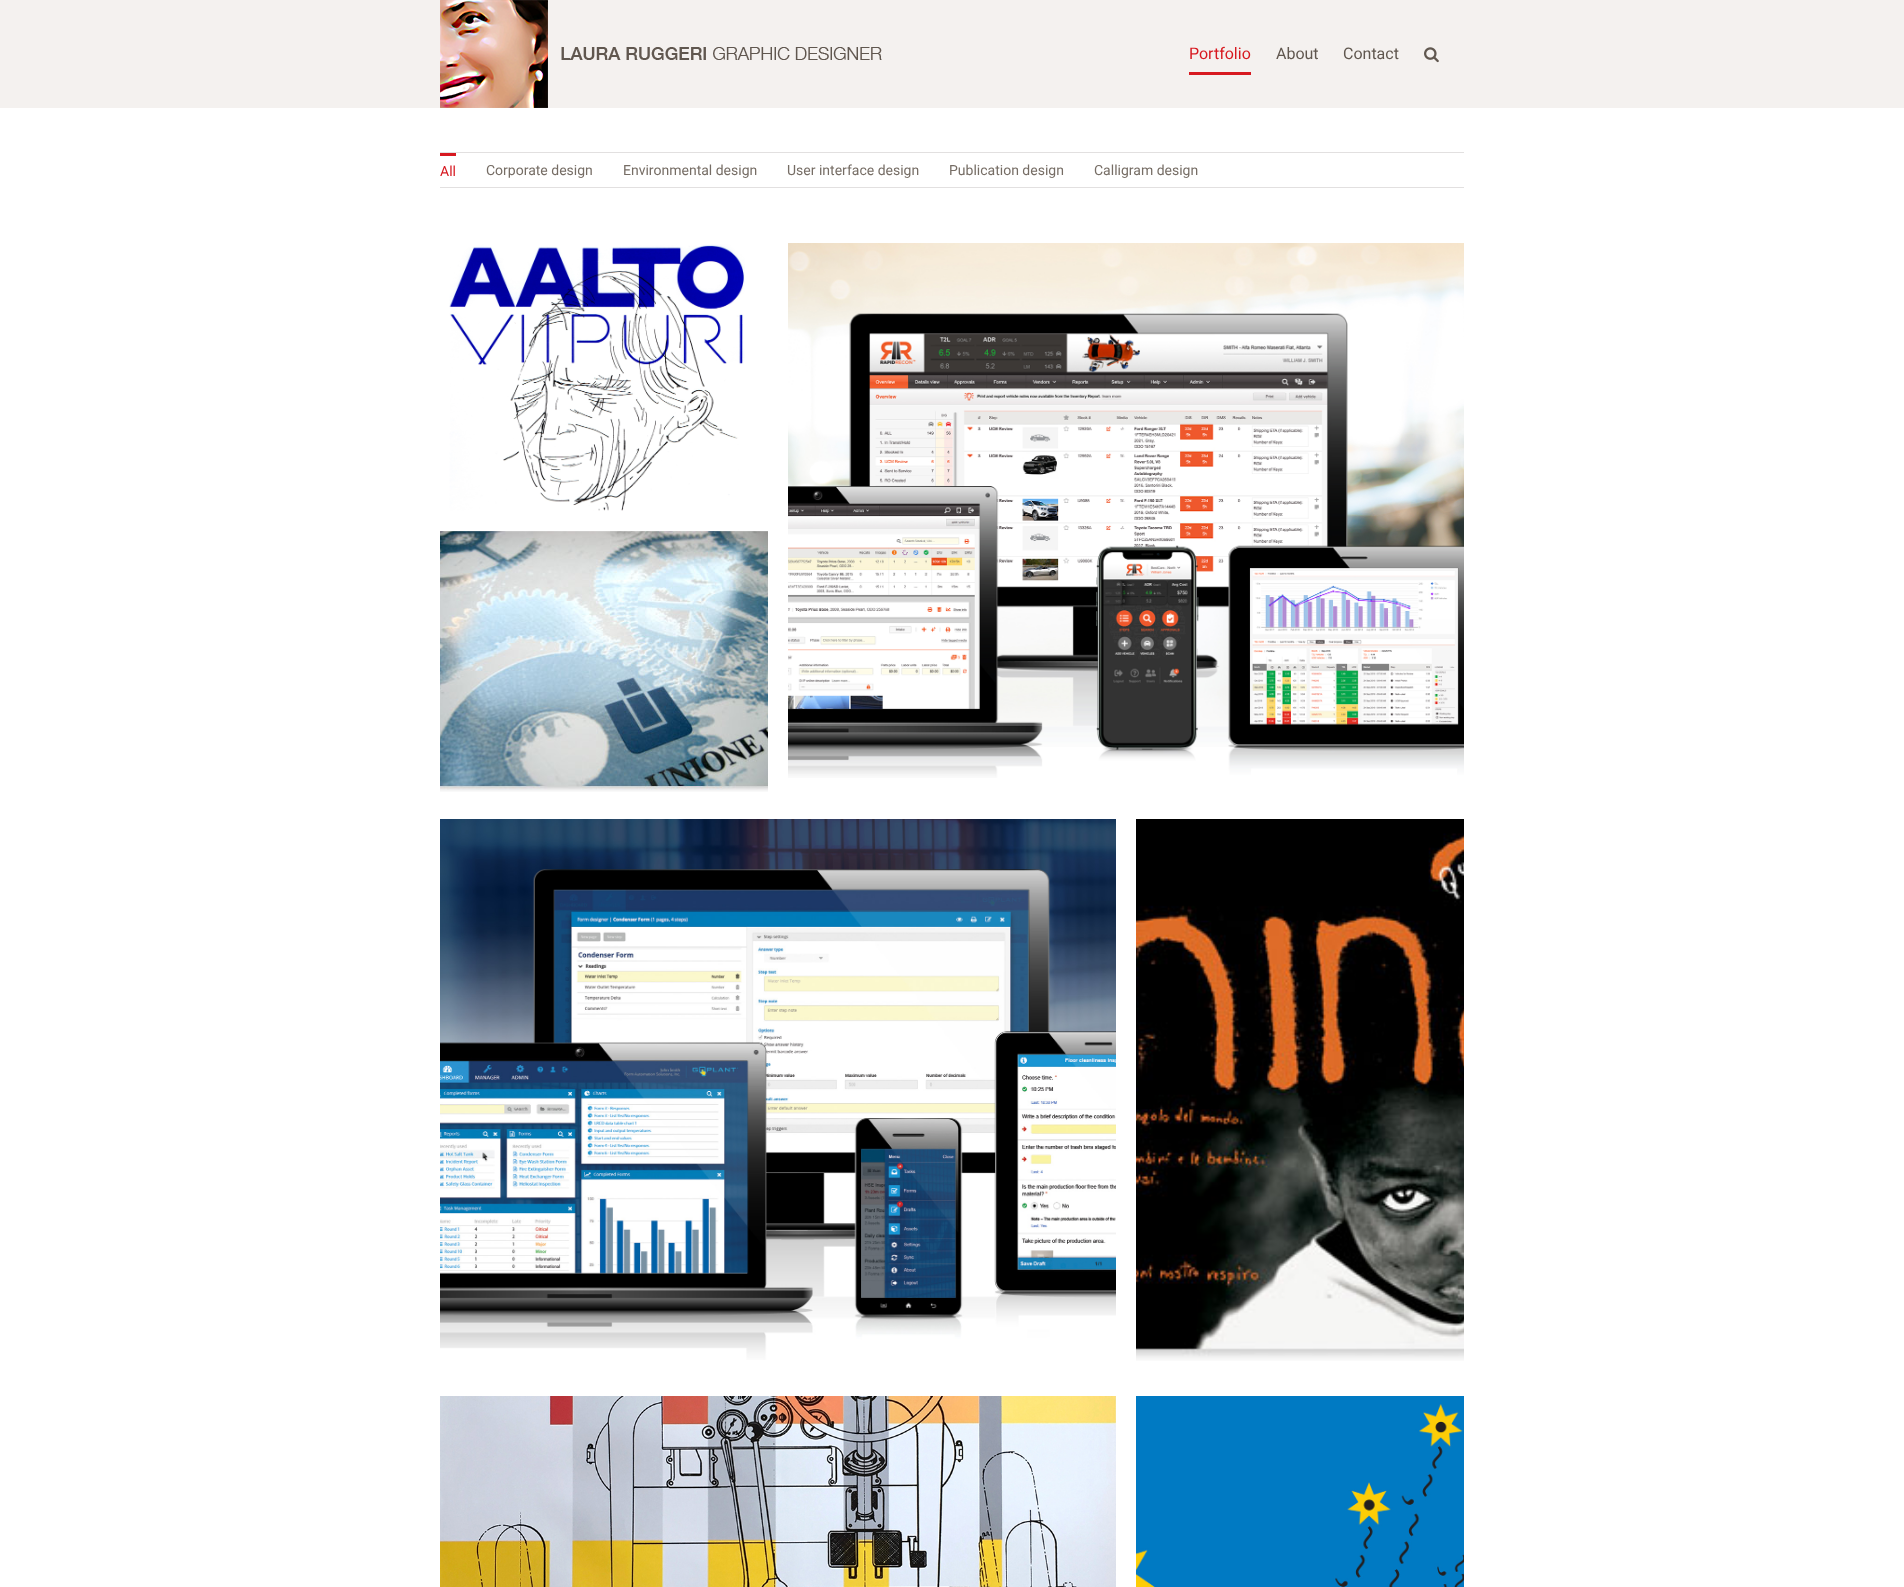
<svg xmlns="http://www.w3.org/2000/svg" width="1904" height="1587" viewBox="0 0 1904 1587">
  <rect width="100%" height="100%" fill="#ffffff"/>
  <rect x="0" y="0" width="1904" height="108" fill="#f4f1ef"/>
  <image x="440" y="0" width="442" height="108" href="img1.png"/>
  <text x="1189" y="59" font-family="Roboto" font-size="16" fill="#d71920">Portfolio</text>
  <rect x="1189" y="72" width="62" height="3" fill="#d71920"/>
  <text x="1276" y="59" font-family="Roboto" font-size="16" fill="#60574f">About</text>
  <text x="1343" y="59" font-family="Roboto" font-size="16" fill="#60574f">Contact</text>
  <image x="1424" y="47" width="15" height="16" href="img2.png"/>
  <rect x="440" y="152" width="1024" height="1" fill="#e2e0e0"/>
  <rect x="440" y="187" width="1024" height="1" fill="#e2e0e0"/>
  <rect x="440" y="153" width="16" height="3" fill="#d71920"/>
  <text x="440" y="176" font-family="Roboto" font-size="14" fill="#d71920">All</text>
  <text x="486" y="175" font-family="Roboto" font-size="14" fill="#766d65">Corporate design</text>
  <text x="623" y="175" font-family="Roboto" font-size="14" fill="#766d65">Environmental design</text>
  <text x="787" y="175" font-family="Roboto" font-size="14" fill="#766d65">User interface design</text>
  <text x="949" y="175" font-family="Roboto" font-size="14" fill="#766d65">Publication design</text>
  <text x="1094" y="175" font-family="Roboto" font-size="14" fill="#766d65">Calligram design</text>
  <image x="449" y="244" width="296" height="267" href="img3.png"/>
  <image x="788" y="243" width="676" height="535" href="img4.png"/>
  <image x="440" y="531" width="328" height="261" href="img5.png"/>
  <image x="440" y="819" width="676" height="541" href="img6.png"/>
  <image x="1136" y="819" width="328" height="542" href="img7.png"/>
  <image x="440" y="1396" width="676" height="191" href="img8.png"/>
  <image x="1136" y="1396" width="328" height="191" href="img9.png"/>
</svg>
